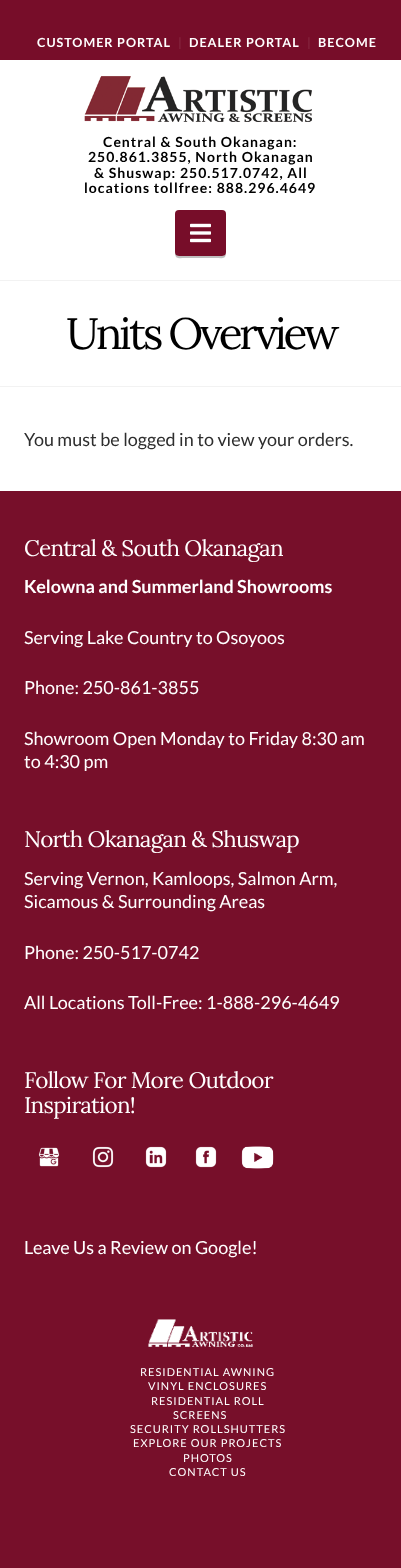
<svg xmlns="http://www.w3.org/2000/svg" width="401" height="1568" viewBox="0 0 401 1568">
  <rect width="100%" height="100%" fill="#ffffff"/>
  <rect x="0" y="0" width="401" height="60" fill="#770d29"/>
  <text x="37" y="47" font-family="Lato" font-size="12.6" font-weight="bold" letter-spacing="1" fill="#ffffff">CUSTOMER PORTAL</text>
  <text x="178" y="47" font-family="Lato" font-size="12.6" font-weight="bold" fill="#85253e">|</text>
  <text x="189" y="47" font-family="Lato" font-size="12.6" font-weight="bold" letter-spacing="1" fill="#ffffff">DEALER PORTAL</text>
  <text x="307" y="47" font-family="Lato" font-size="12.6" font-weight="bold" fill="#85253e">|</text>
  <text x="318" y="47" font-family="Lato" font-size="12.6" font-weight="bold" letter-spacing="1" fill="#ffffff">BECOME</text>
  <image x="84" y="76" width="228" height="46" href="img1.png"/>
  <text x="103" y="147" font-family="Lato" font-size="14" font-weight="bold" letter-spacing="1" fill="#000000">Central &amp; South Okanagan:</text>
  <text x="88" y="162" font-family="Lato" font-size="14" font-weight="bold" letter-spacing="1" fill="#000000">250.861.3855, North Okanagan</text>
  <text x="94" y="178" font-family="Lato" font-size="14" font-weight="bold" letter-spacing="1" fill="#000000">&amp; Shuswap: 250.517.0742, All</text>
  <text x="84" y="193" font-family="Lato" font-size="14" font-weight="bold" letter-spacing="1" fill="#000000">locations tollfree: 888.296.4649</text>
  <path d="M175 252C175 260 179 258 186 258H215C222 258 226 260 226 252C226 254 224 256 222 256H179C177 256 175 254 175 252Z" fill="#bfbfbf"/>
  <rect x="175" y="210" width="51" height="46" rx="4" fill="#770d29"/>
  <image x="190" y="223" width="21" height="20" href="img2.png"/>
  <rect x="0" y="280" width="401" height="1" fill="#f2f2f2"/>
  <rect x="0" y="386" width="401" height="1" fill="#f2f2f2"/>
  <text x="66" y="349" font-family="Lora" font-size="44" letter-spacing="-3.25" fill="#000000">Units Overview</text>
  <text x="24" y="446" font-family="Lato" font-size="18" fill="#2e2e2e">You must be logged in to view your orders.</text>
  <rect x="0" y="491" width="401" height="1077" fill="#770f2a"/>
  <text x="24" y="556" font-family="Lora" font-size="22.5" letter-spacing="-0.75" fill="#ffffff">Central &amp; South Okanagan</text>
  <text x="24" y="593" font-family="Lato" font-size="18" font-weight="bold" fill="#ffffff">Kelowna and Summerland Showrooms</text>
  <text x="24" y="644" font-family="Lato" font-size="18" fill="#ffffff">Serving Lake Country to Osoyoos</text>
  <text x="24" y="694" font-family="Lato" font-size="18" fill="#ffffff">Phone: 250-861-3855</text>
  <text x="24" y="745" font-family="Lato" font-size="18" fill="#ffffff">Showroom Open Monday to Friday 8:30 am</text>
  <text x="24" y="768" font-family="Lato" font-size="18" fill="#ffffff">to 4:30 pm</text>
  <text x="24" y="847" font-family="Lora" font-size="22.5" letter-spacing="-0.75" fill="#ffffff">North Okanagan &amp; Shuswap</text>
  <text x="24" y="885" font-family="Lato" font-size="18" fill="#ffffff">Serving Vernon, Kamloops, Salmon Arm,</text>
  <text x="24" y="908" font-family="Lato" font-size="18" fill="#ffffff">Sicamous &amp; Surrounding Areas</text>
  <text x="24" y="959" font-family="Lato" font-size="18" fill="#ffffff">Phone: 250-517-0742</text>
  <text x="24" y="1009" font-family="Lato" font-size="18" fill="#ffffff">All Locations Toll-Free: 1-888-296-4649</text>
  <text x="24" y="1088" font-family="Lora" font-size="22.5" letter-spacing="-0.75" fill="#ffffff">Follow For More Outdoor</text>
  <text x="24" y="1113" font-family="Lora" font-size="22.5" letter-spacing="-0.75" fill="#ffffff">Inspiration!</text>
  <image x="38" y="1147" width="22" height="20" href="img3.png"/>
  <image x="92" y="1146" width="22" height="22" href="img4.png"/>
  <image x="145" y="1146" width="22" height="22" href="img5.png"/>
  <image x="195" y="1146" width="22" height="22" href="img6.png"/>
  <image x="241" y="1146" width="33" height="23" href="img7.png"/>
  <text x="24" y="1254" font-family="Lato" font-size="18" fill="#ffffff">Leave Us a Review on Google!</text>
  <image x="148" y="1319" width="105" height="28" href="img8.png"/>
  <text x="140" y="1376" font-family="Lato" font-size="11" letter-spacing="1" fill="#ffffff">RESIDENTIAL AWNING</text>
  <text x="148" y="1390" font-family="Lato" font-size="11" letter-spacing="1" fill="#ffffff">VINYL ENCLOSURES</text>
  <text x="151" y="1405" font-family="Lato" font-size="11" letter-spacing="1" fill="#ffffff">RESIDENTIAL ROLL</text>
  <text x="173" y="1419" font-family="Lato" font-size="11" letter-spacing="1" fill="#ffffff">SCREENS</text>
  <text x="130" y="1433" font-family="Lato" font-size="11" letter-spacing="1" fill="#ffffff">SECURITY ROLLSHUTTERS</text>
  <text x="133" y="1447" font-family="Lato" font-size="11" letter-spacing="1" fill="#ffffff">EXPLORE OUR PROJECTS</text>
  <text x="183" y="1462" font-family="Lato" font-size="11" letter-spacing="1" fill="#ffffff">PHOTOS</text>
  <text x="169" y="1476" font-family="Lato" font-size="11" letter-spacing="1" fill="#ffffff">CONTACT US</text>
</svg>
